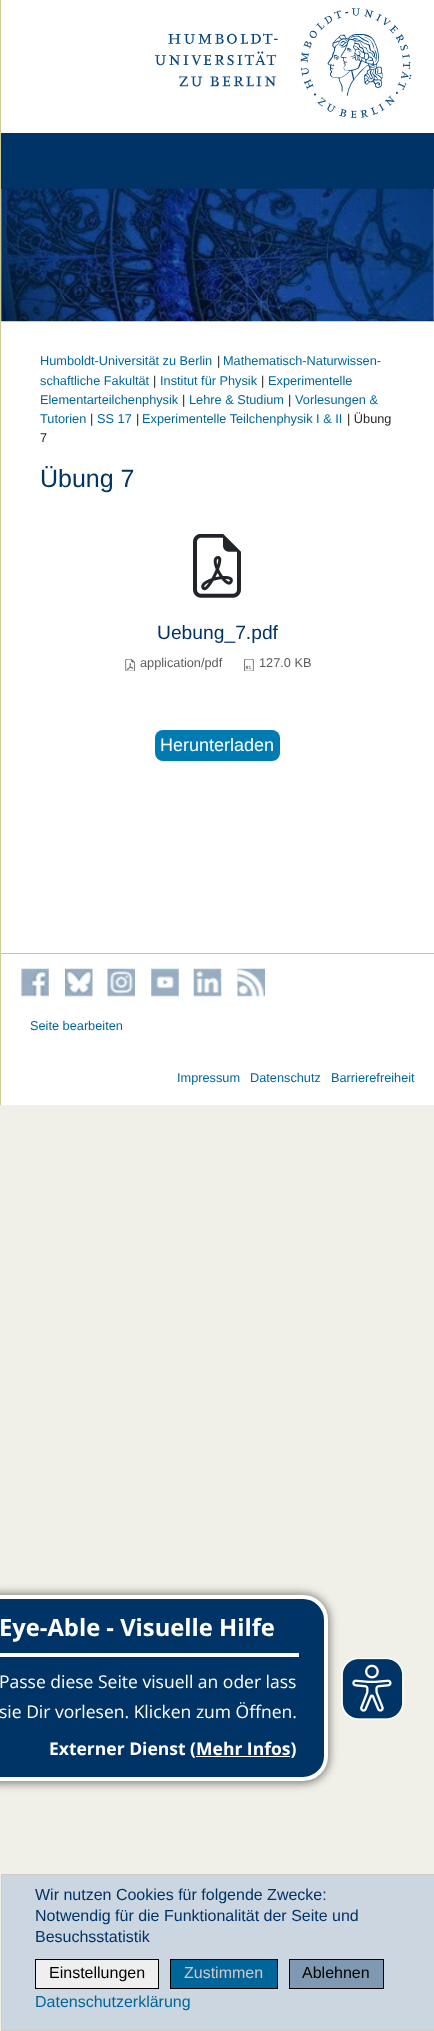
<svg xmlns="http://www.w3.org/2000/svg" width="434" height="2031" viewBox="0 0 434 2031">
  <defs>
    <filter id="blur1" x="-50%" y="-200%" width="200%" height="500%"><feGaussianBlur stdDeviation="5"/></filter>
  </defs>
  <rect width="100%" height="100%" fill="#f0f0e8"/>
  <rect x="1" y="0" width="433" height="1105" fill="#ffffff"/>
  <image x="155" y="8" width="257" height="110" href="img1.png"/>
  <rect x="1" y="133" width="433" height="56" fill="#003366"/>
  <image x="1" y="188" width="433" height="134" href="img2.png"/>
  <rect x="0" y="0" width="1" height="1105" fill="#cccc99"/>
  <text x="40" y="365" font-family="Liberation Sans" font-size="12.75" fill="#006699">Humboldt-Universität zu Berlin</text>
  <text x="217" y="365" font-family="Liberation Sans" font-size="12.75" fill="#212529">|</text>
  <text x="223" y="365" font-family="Liberation Sans" font-size="12.75" fill="#006699">Mathematisch-Naturwissen-</text>
  <text x="40" y="385" font-family="Liberation Sans" font-size="12.75" fill="#006699">schaftliche Fakultät</text>
  <text x="153" y="385" font-family="Liberation Sans" font-size="12.75" fill="#212529">|</text>
  <text x="160" y="385" font-family="Liberation Sans" font-size="12.75" fill="#006699">Institut für Physik</text>
  <text x="261" y="385" font-family="Liberation Sans" font-size="12.75" fill="#212529">|</text>
  <text x="268" y="385" font-family="Liberation Sans" font-size="12.75" fill="#006699">Experimentelle</text>
  <text x="40" y="404" font-family="Liberation Sans" font-size="12.75" fill="#006699">Elementarteilchenphysik</text>
  <text x="182" y="404" font-family="Liberation Sans" font-size="12.75" fill="#212529">|</text>
  <text x="189" y="404" font-family="Liberation Sans" font-size="12.75" fill="#006699">Lehre &amp; Studium</text>
  <text x="288" y="404" font-family="Liberation Sans" font-size="12.75" fill="#212529">|</text>
  <text x="295" y="404" font-family="Liberation Sans" font-size="12.75" fill="#006699">Vorlesungen &amp;</text>
  <text x="40" y="423" font-family="Liberation Sans" font-size="12.75" fill="#006699">Tutorien</text>
  <text x="90" y="423" font-family="Liberation Sans" font-size="12.75" fill="#212529">|</text>
  <text x="97" y="423" font-family="Liberation Sans" font-size="12.75" fill="#006699">SS 17</text>
  <text x="136" y="423" font-family="Liberation Sans" font-size="12.75" fill="#212529">|</text>
  <text x="142" y="423" font-family="Liberation Sans" font-size="12.75" fill="#006699">Experimentelle Teilchenphysik I &amp; II</text>
  <text x="347" y="423" font-family="Liberation Sans" font-size="12.75" fill="#212529">| Übung</text>
  <text x="40" y="442" font-family="Liberation Sans" font-size="12.75" fill="#212529">7</text>
  <text x="40" y="487" font-family="Liberation Sans" font-size="25" fill="#003366">Übung 7</text>
  <image x="193" y="534" width="48" height="64" href="img3.png"/>
  <text x="157" y="639" font-family="Liberation Sans" font-size="19.25" fill="#003366">Uebung_7.pdf</text>
  <image x="125" y="659" width="10" height="12" href="img4.png"/>
  <text x="140" y="667" font-family="Liberation Sans" font-size="12.75" fill="#595c5f">application/pdf</text>
  <image x="244" y="659" width="10" height="12" href="img5.png"/>
  <text x="259" y="667" font-family="Liberation Sans" font-size="12.75" fill="#595c5f">127.0 KB</text>
  <rect x="155" y="730" width="125" height="31" rx="8" fill="#007bb1"/>
  <text x="160" y="751" font-family="Liberation Sans" font-size="18" fill="#ffffff">Herunterladen</text>
  <rect x="1" y="953" width="433" height="1" fill="#b2c1d1"/>
  <image x="21" y="968" width="28" height="29" href="img6.png"/>
  <image x="65" y="968" width="28" height="29" href="img7.png"/>
  <image x="107" y="968" width="28" height="29" href="img8.png"/>
  <image x="151" y="968" width="28" height="29" href="img9.png"/>
  <image x="193" y="968" width="29" height="29" href="img10.png"/>
  <image x="237" y="968" width="28" height="29" href="img11.png"/>
  <text x="30" y="1030" font-family="Liberation Sans" font-size="12.75" fill="#006699">Seite bearbeiten</text>
  <text x="177" y="1082" font-family="Liberation Sans" font-size="12.75" fill="#006699">Impressum</text>
  <text x="250" y="1082" font-family="Liberation Sans" font-size="12.75" fill="#006699">Datenschutz</text>
  <text x="331" y="1082" font-family="Liberation Sans" font-size="12.75" fill="#006699">Barrierefreiheit</text>
  <rect x="1.5" y="1874.5" width="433" height="156" fill="#ccd6e0" stroke="#cccccc"/>
  <text x="35" y="1900" font-family="Liberation Sans" font-size="16" fill="#003366">Wir nutzen Cookies für folgende Zwecke:</text>
  <text x="35" y="1921" font-family="Liberation Sans" font-size="16" fill="#003366">Notwendig für die Funktionalität der Seite und</text>
  <text x="35" y="1942" font-family="Liberation Sans" font-size="16" fill="#003366">Besuchsstatistik</text>
  <rect x="35.5" y="1959.5" width="123" height="29" fill="#efefef" stroke="#000000"/>
  <text x="49" y="1978" font-family="Liberation Sans" font-size="16" fill="#000000">Einstellungen</text>
  <rect x="170.5" y="1959.5" width="107" height="29" fill="#006699" stroke="#000000"/>
  <text x="184" y="1978" font-family="Liberation Sans" font-size="16" fill="#d5c7c7">Zustimmen</text>
  <rect x="289.5" y="1959.5" width="94" height="29" fill="#8099b2" stroke="#000000"/>
  <text x="302" y="1978" font-family="Liberation Sans" font-size="16" fill="#000000">Ablehnen</text>
  <text x="35" y="2007" font-family="Liberation Sans" font-size="16" fill="#006699">Datenschutzerklärung</text>
  <rect x="-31" y="1594" width="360" height="189" rx="26" fill="#000000" fill-opacity="0.5" filter="url(#blur1)"/>
  <rect x="-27" y="1597" width="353" height="182" rx="23" fill="#003366" stroke="#ffffff" stroke-width="4"/>
  <rect x="0" y="1653" width="299" height="4" fill="#ffffff"/>
  <text x="-1" y="1636" font-family="Open Sans" font-size="23.75" font-weight="bold" fill="#ffffff">Eye-Able - Visuelle Hilfe</text>
  <text x="-1" y="1688" font-family="Open Sans" font-size="17.5" fill="#ffffff">Passe diese Seite visuell an oder lass</text>
  <text x="-1" y="1718" font-family="Open Sans" font-size="17.5" fill="#ffffff">sie Dir vorlesen. Klicken zum Öffnen.</text>
  <text x="49" y="1755" font-family="Open Sans" font-size="17.5" font-weight="bold" fill="#ffffff">Externer Dienst (Mehr Infos)</text>
  <rect x="196" y="1756" width="94" height="1" fill="#ffffff"/>
  <image x="341" y="1658" width="63" height="62" href="img12.png"/>
</svg>
